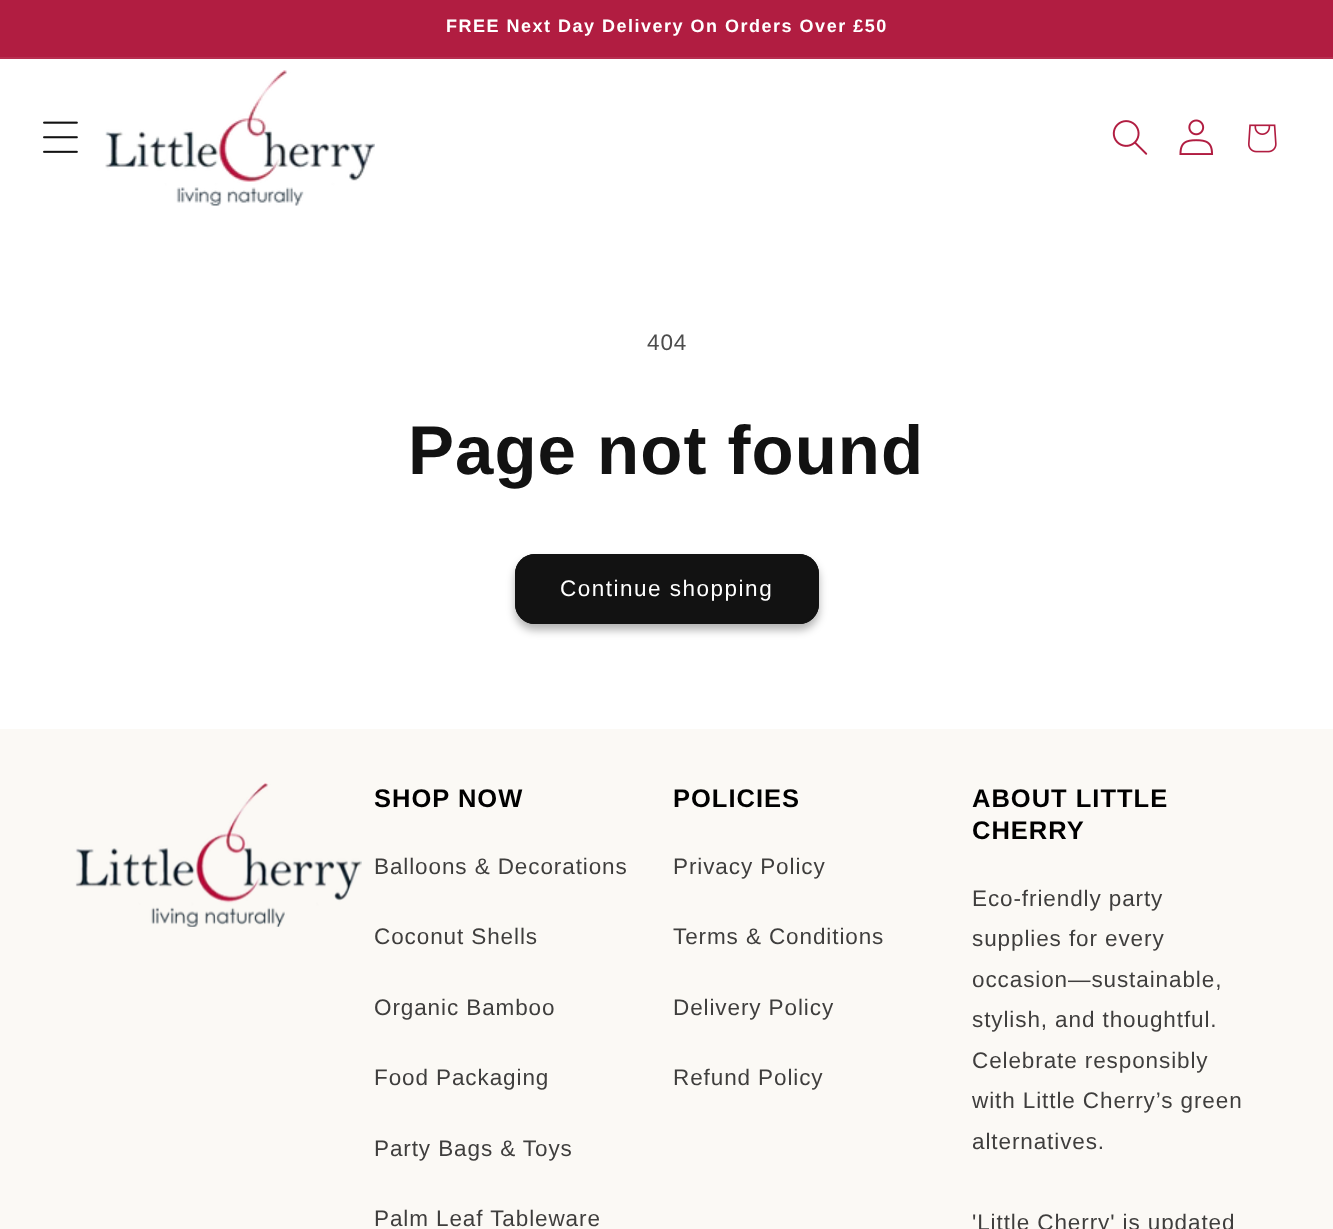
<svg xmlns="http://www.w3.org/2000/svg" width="1333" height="1229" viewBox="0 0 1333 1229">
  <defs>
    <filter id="blur1" x="-50%" y="-200%" width="200%" height="500%"><feGaussianBlur stdDeviation="4"/></filter>
  </defs>
  <rect width="100%" height="100%" fill="#ffffff"/>
  <rect x="0" y="0" width="1333" height="57" fill="#b11d41"/>
  <rect x="0" y="57" width="1333" height="2" fill="#b72f50"/>
  <text x="446" y="32" font-family="Liberation Sans" font-size="18" font-weight="bold" letter-spacing="1.5" fill="#ffffff">FREE Next Day Delivery On Orders Over £50</text>
  <image x="43" y="121" width="35" height="32" href="img1.png"/>
  <image x="105" y="70" width="270" height="136" href="img2.png"/>
  <image x="1112" y="120" width="36" height="35" href="img3.png"/>
  <image x="1179" y="119" width="35" height="36" href="img4.png"/>
  <image x="1248" y="124" width="29" height="29" href="img5.png"/>
  <text x="647" y="350" font-family="Liberation Sans" font-size="22.5" letter-spacing="0.9" fill="#4d4d4d">404</text>
  <text x="408" y="474" font-family="Liberation Sans" font-size="69" font-weight="bold" letter-spacing="1" fill="#121212">Page not found</text>
  <rect x="515" y="560" width="304" height="70" rx="20" fill="#121212" fill-opacity="0.3" filter="url(#blur1)"/>
  <rect x="515" y="554" width="304" height="70" rx="20" fill="#121212"/>
  <rect x="516" y="555" width="302" height="68" rx="19" fill="none" stroke="#121212" stroke-width="2"/>
  <text x="560" y="596" font-family="Liberation Sans" font-size="22.5" letter-spacing="1.5" fill="#ffffff">Continue shopping</text>
  <rect x="0" y="729" width="1333" height="500" fill="#fbf9f5"/>
  <image x="75" y="783" width="287" height="144" href="img6.png"/>
  <text x="374" y="807" font-family="Liberation Sans" font-size="25.5" font-weight="bold" letter-spacing="1" fill="#000000">SHOP NOW</text>
  <text x="374" y="874" font-family="Liberation Sans" font-size="22.5" letter-spacing="0.9" fill="#3f3e3d">Balloons &amp; Decorations</text>
  <text x="374" y="944" font-family="Liberation Sans" font-size="22.5" letter-spacing="0.9" fill="#3f3e3d">Coconut Shells</text>
  <text x="374" y="1015" font-family="Liberation Sans" font-size="22.5" letter-spacing="0.9" fill="#3f3e3d">Organic Bamboo</text>
  <text x="374" y="1085" font-family="Liberation Sans" font-size="22.5" letter-spacing="0.9" fill="#3f3e3d">Food Packaging</text>
  <text x="374" y="1156" font-family="Liberation Sans" font-size="22.5" letter-spacing="0.9" fill="#3f3e3d">Party Bags &amp; Toys</text>
  <text x="374" y="1226" font-family="Liberation Sans" font-size="22.5" letter-spacing="0.9" fill="#3f3e3d">Palm Leaf Tableware</text>
  <text x="673" y="807" font-family="Liberation Sans" font-size="25.5" font-weight="bold" letter-spacing="1" fill="#000000">POLICIES</text>
  <text x="673" y="874" font-family="Liberation Sans" font-size="22.5" letter-spacing="0.9" fill="#3f3e3d">Privacy Policy</text>
  <text x="673" y="944" font-family="Liberation Sans" font-size="22.5" letter-spacing="0.9" fill="#3f3e3d">Terms &amp; Conditions</text>
  <text x="673" y="1015" font-family="Liberation Sans" font-size="22.5" letter-spacing="0.9" fill="#3f3e3d">Delivery Policy</text>
  <text x="673" y="1085" font-family="Liberation Sans" font-size="22.5" letter-spacing="0.9" fill="#3f3e3d">Refund Policy</text>
  <text x="972" y="807" font-family="Liberation Sans" font-size="25.5" font-weight="bold" letter-spacing="1" fill="#000000">ABOUT LITTLE</text>
  <text x="972" y="839" font-family="Liberation Sans" font-size="25.5" font-weight="bold" letter-spacing="1" fill="#000000">CHERRY</text>
  <text x="972" y="906" font-family="Liberation Sans" font-size="22.5" letter-spacing="0.9" fill="#3f3e3d">Eco-friendly party</text>
  <text x="972" y="946" font-family="Liberation Sans" font-size="22.5" letter-spacing="0.9" fill="#3f3e3d">supplies for every</text>
  <text x="972" y="987" font-family="Liberation Sans" font-size="22.5" letter-spacing="0.9" fill="#3f3e3d">occasion—sustainable,</text>
  <text x="972" y="1027" font-family="Liberation Sans" font-size="22.5" letter-spacing="0.9" fill="#3f3e3d">stylish, and thoughtful.</text>
  <text x="972" y="1068" font-family="Liberation Sans" font-size="22.5" letter-spacing="0.9" fill="#3f3e3d">Celebrate responsibly</text>
  <text x="972" y="1108" font-family="Liberation Sans" font-size="22.5" letter-spacing="0.9" fill="#3f3e3d">with Little Cherry’s green</text>
  <text x="972" y="1149" font-family="Liberation Sans" font-size="22.5" letter-spacing="0.9" fill="#3f3e3d">alternatives.</text>
  <text x="972" y="1230" font-family="Liberation Sans" font-size="22.5" letter-spacing="0.9" fill="#3f3e3d">'Little Cherry' is updated</text>
</svg>
